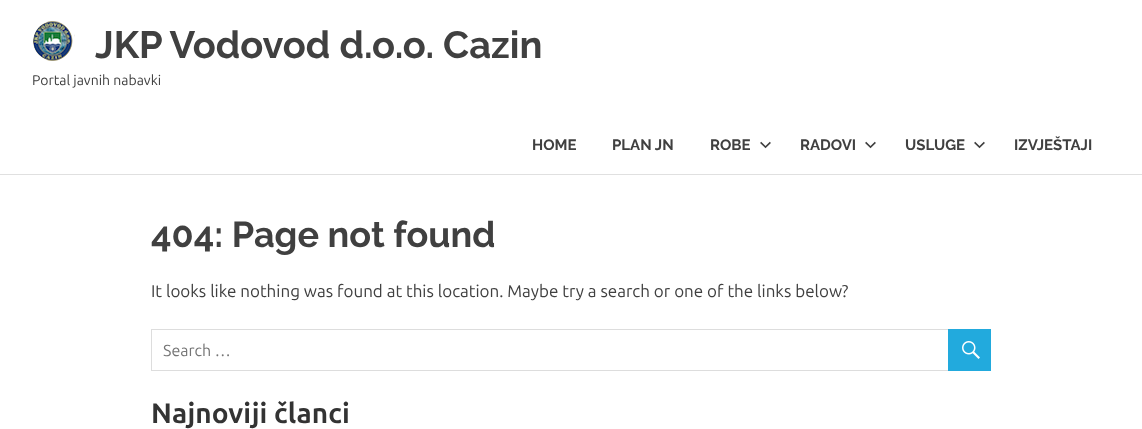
<svg xmlns="http://www.w3.org/2000/svg" width="1142" height="429" viewBox="0 0 1142 429">
  <rect width="100%" height="100%" fill="#ffffff"/>
  <rect x="0" y="174" width="1142" height="1" fill="#e0e0e0"/>
  <image x="33" y="21" width="42" height="40" href="img1.png"/>
  <text x="95" y="58" font-family="Raleway" font-size="38" font-weight="bold" fill="#404040">JKP Vodovod d.o.o. Cazin</text>
  <text x="32" y="85" font-family="Ubuntu" font-size="14" fill="#404040">Portal javnih nabavki</text>
  <text x="532" y="150" font-family="Raleway" font-size="15" font-weight="bold" fill="#404040">HOME</text>
  <text x="612" y="150" font-family="Raleway" font-size="15" font-weight="bold" fill="#404040">PLAN JN</text>
  <text x="710" y="150" font-family="Raleway" font-size="15" font-weight="bold" fill="#404040">ROBE</text>
  <image x="760" y="141" width="11" height="8" href="img2.png"/>
  <text x="800" y="150" font-family="Raleway" font-size="15" font-weight="bold" fill="#404040">RADOVI</text>
  <image x="865" y="141" width="11" height="8" href="img3.png"/>
  <text x="905" y="150" font-family="Raleway" font-size="15" font-weight="bold" fill="#404040">USLUGE</text>
  <image x="974" y="141" width="11" height="8" href="img3.png"/>
  <text x="1014" y="150" font-family="Raleway" font-size="15" font-weight="bold" fill="#404040">IZVJEŠTAJI</text>
  <text x="151" y="247" font-family="Raleway" font-size="36" font-weight="bold" fill="#404040">404: Page not found</text>
  <text x="151" y="297" font-family="Ubuntu" font-size="17" fill="#404040">It looks like nothing was found at this location. Maybe try a search or one of the links below?</text>
  <rect x="151.5" y="329.5" width="839" height="41" fill="none" stroke="#dddddd"/>
  <text x="163" y="356" font-family="Ubuntu" font-size="16" fill="#757575">Search …</text>
  <rect x="948" y="329" width="43" height="42" fill="#22aadd"/>
  <image x="962" y="341" width="18" height="18" href="img4.png"/>
  <text x="151" y="423" font-family="Ubuntu" font-size="28" font-weight="bold" fill="#333333">Najnoviji članci</text>
</svg>
